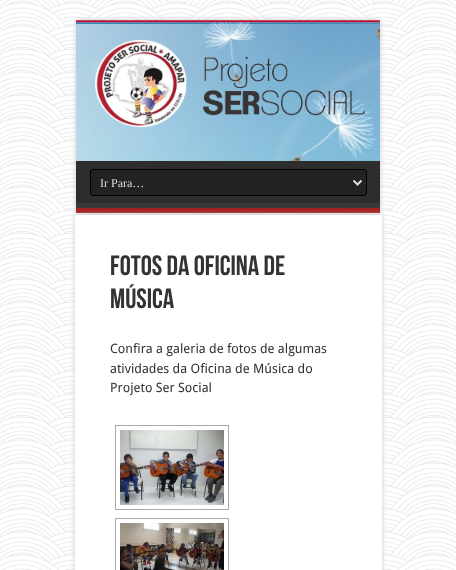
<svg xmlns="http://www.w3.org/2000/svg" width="456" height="570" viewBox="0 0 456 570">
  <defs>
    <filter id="blur1" x="-50%" y="-200%" width="200%" height="500%"><feGaussianBlur stdDeviation="2.5"/></filter>
  </defs>
  <rect width="100%" height="100%" fill="#ffffff"/>
  <image x="0" y="0" width="456" height="570" href="img1.png"/>
  <rect x="76" y="20" width="304" height="193" fill="#cacaca" filter="url(#blur1)"/>
  <image x="76" y="20" width="304" height="141" href="img2.png"/>
  <image x="95" y="40" width="270" height="88" href="img3.png"/>
  <image x="76" y="161" width="304" height="47" href="img4.png"/>
  <rect x="76" y="208" width="304" height="5" fill="#a12222"/>
  <rect x="90.5" y="169.5" width="276" height="26" rx="2.5" fill="#222222" stroke="#000000"/>
  <path d="M353.5 180.5L357.5 184.5L361.5 180.5" fill="none" stroke="#dddddd" stroke-width="2"/>
  <text x="100" y="187" font-family="Liberation Serif" font-size="12" fill="#dddddd">Ir Para…</text>
  <rect x="75" y="215" width="307" height="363" fill="#cacaca" filter="url(#blur1)"/>
  <rect x="75" y="215" width="307" height="355" fill="#ffffff"/>
  <text x="110" y="275" font-family="Bebas Neue" font-size="28" fill="#333333">Fotos da Oficina de</text>
  <text x="110" y="308" font-family="Bebas Neue" font-size="28" fill="#333333">Música</text>
  <text x="110" y="353" font-family="Droid Sans" font-size="13" fill="#333333">Confira a galeria de fotos de algumas</text>
  <text x="110" y="373" font-family="Droid Sans" font-size="13" fill="#333333">atividades da Oficina de Música do</text>
  <text x="110" y="392" font-family="Droid Sans" font-size="13" fill="#333333">Projeto Ser Social</text>
  <rect x="115.5" y="425.5" width="113" height="84" fill="none" stroke="#a9a9a9"/>
  <image x="120" y="430" width="104" height="75" href="img5.png"/>
  <rect x="115.5" y="518.5" width="113" height="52" fill="none" stroke="#a9a9a9"/>
  <image x="120" y="523" width="104" height="47" href="img6.png"/>
</svg>
